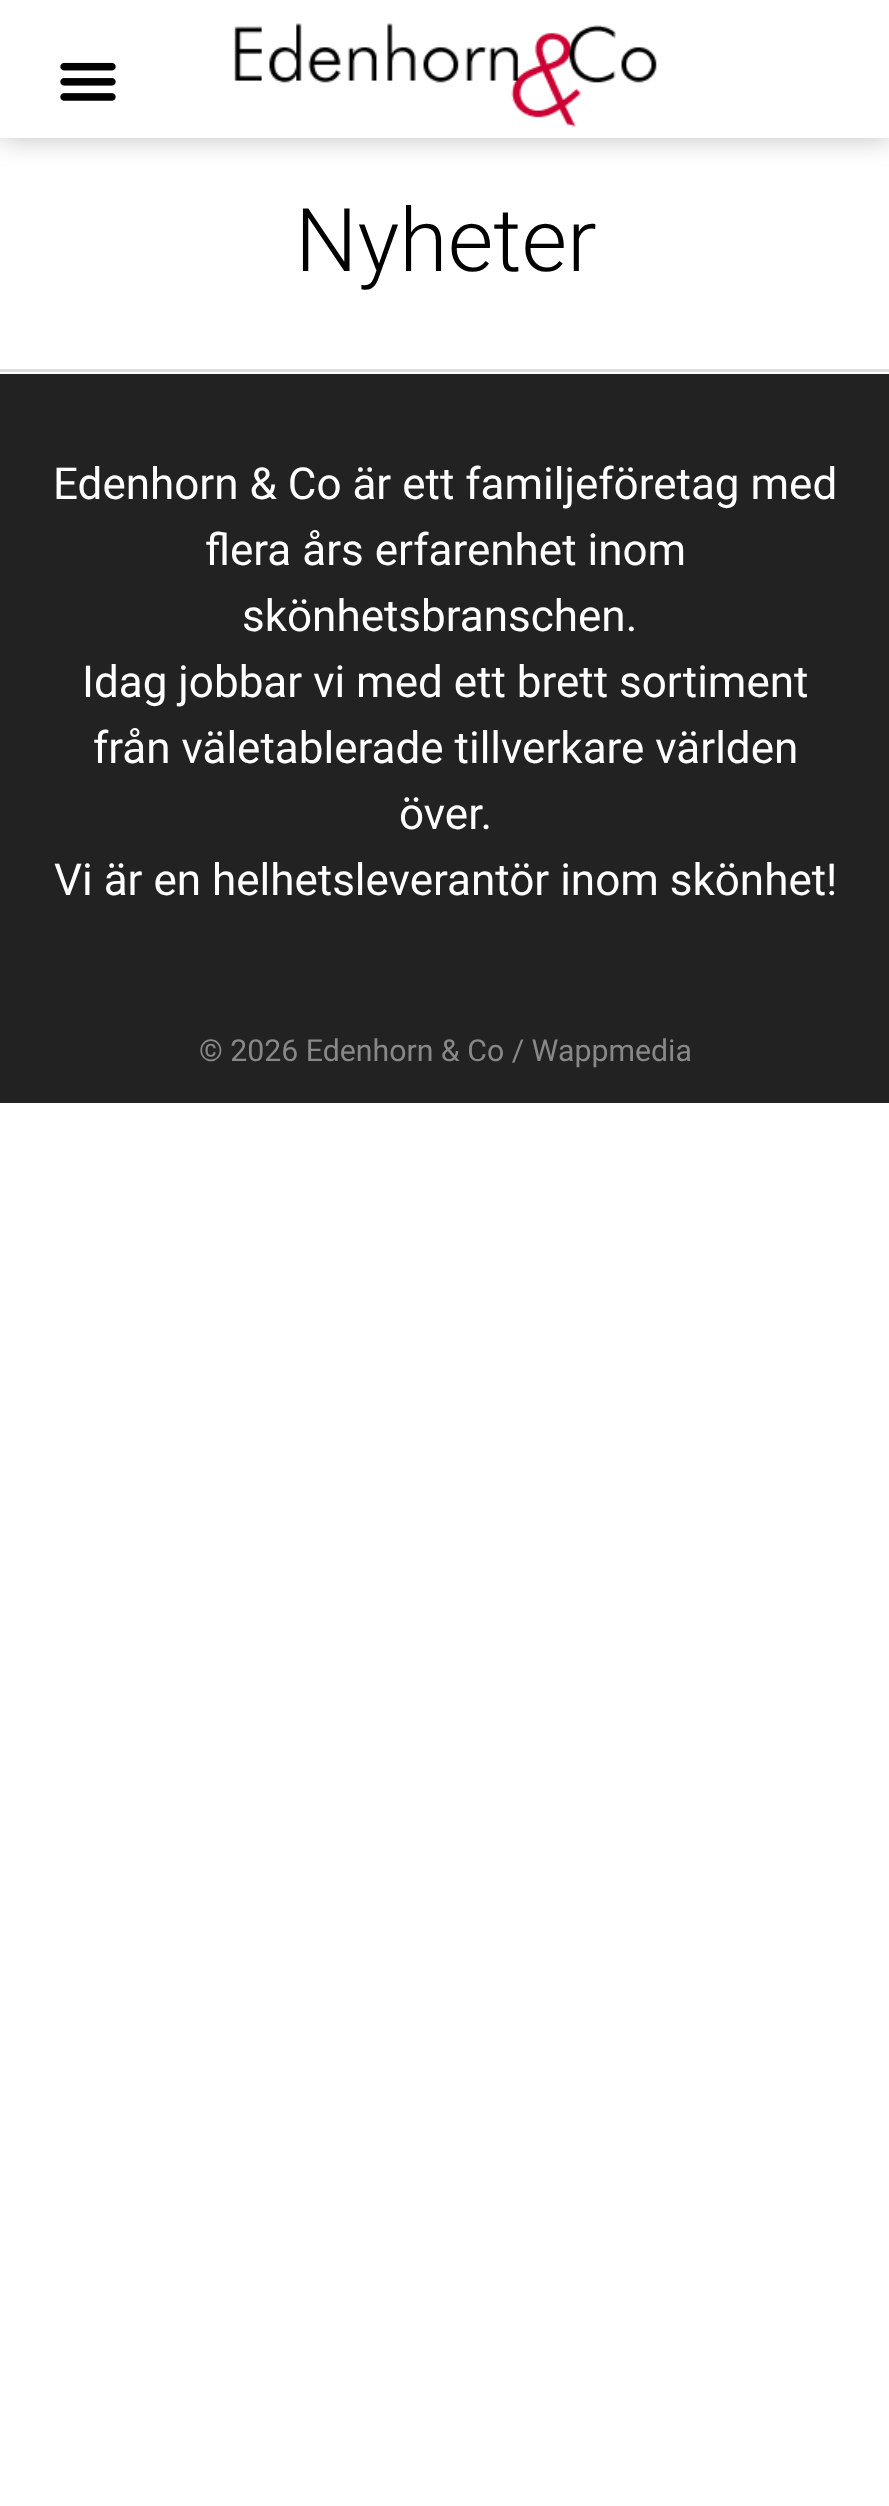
<svg xmlns="http://www.w3.org/2000/svg" width="889" height="2506" viewBox="0 0 889 2506">
  <defs>
    <filter id="blur1" x="-50%" y="-200%" width="200%" height="500%"><feGaussianBlur stdDeviation="14"/></filter>
  </defs>
  <rect width="100%" height="100%" fill="#ffffff"/>
  <rect x="0" y="0" width="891" height="138" fill="#000000" fill-opacity="0.25" filter="url(#blur1)"/>
  <rect x="0" y="0" width="889" height="138" fill="#ffffff"/>
  <image x="60" y="62" width="56" height="39" href="img1.png"/>
  <image x="234" y="23" width="423" height="104" href="img2.png"/>
  <text x="295" y="271" font-family="Roboto" font-size="88" font-weight="300" fill="#000000">Nyheter</text>
  <rect x="0" y="369" width="889" height="3" fill="#dddddd"/>
  <rect x="0" y="374" width="889" height="729" fill="#222222"/>
  <text x="53" y="499" font-family="Roboto" font-size="44" fill="#ffffff">Edenhorn &amp; Co är ett familjeföretag med</text>
  <text x="205" y="565" font-family="Roboto" font-size="44" fill="#ffffff">flera års erfarenhet inom</text>
  <text x="242" y="631" font-family="Roboto" font-size="44" fill="#ffffff">skönhetsbranschen.</text>
  <text x="82" y="697" font-family="Roboto" font-size="44" fill="#ffffff">Idag jobbar vi med ett brett sortiment</text>
  <text x="93" y="763" font-family="Roboto" font-size="44" fill="#ffffff">från väletablerade tillverkare världen</text>
  <text x="399" y="829" font-family="Roboto" font-size="44" fill="#ffffff">över.</text>
  <text x="54" y="895" font-family="Roboto" font-size="44" fill="#ffffff">Vi är en helhetsleverantör inom skönhet!</text>
  <text x="199" y="1061" font-family="Roboto" font-size="30.25" fill="#888888">© 2026 Edenhorn &amp; Co / Wappmedia</text>
</svg>
